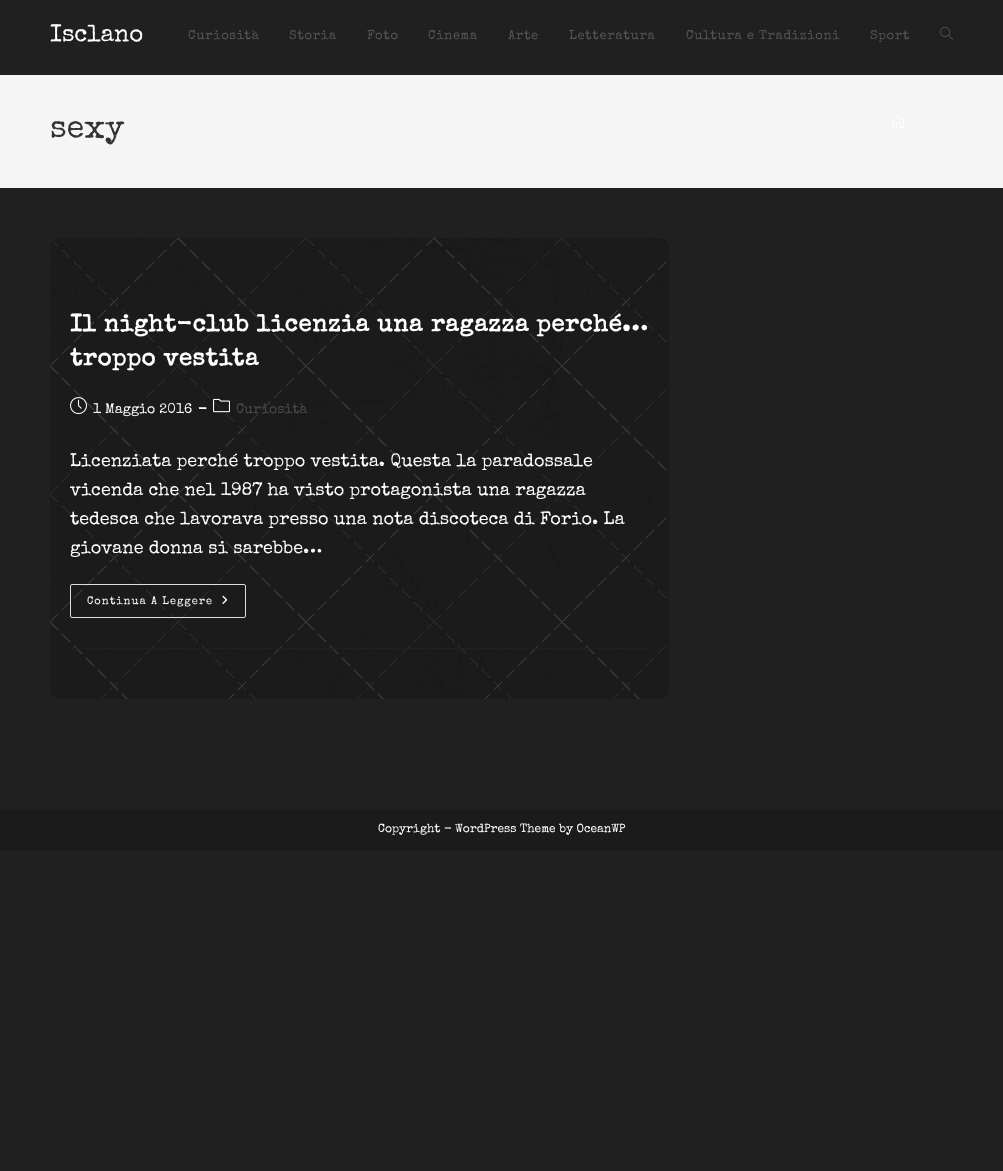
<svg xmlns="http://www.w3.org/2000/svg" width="1003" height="1171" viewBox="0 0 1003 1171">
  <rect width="100%" height="100%" fill="#212020"/>
  <text x="50" y="41" font-family="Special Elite" font-size="24" fill="#ffffff">Isclano</text>
  <text x="188" y="39" font-family="Special Elite" font-size="13" letter-spacing="0.6" fill="#555555">Curiosità</text>
  <text x="289" y="39" font-family="Special Elite" font-size="13" letter-spacing="0.6" fill="#555555">Storia</text>
  <text x="367" y="39" font-family="Special Elite" font-size="13" letter-spacing="0.6" fill="#555555">Foto</text>
  <text x="428" y="39" font-family="Special Elite" font-size="13" letter-spacing="0.6" fill="#555555">Cinema</text>
  <text x="508" y="39" font-family="Special Elite" font-size="13" letter-spacing="0.6" fill="#555555">Arte</text>
  <text x="569" y="39" font-family="Special Elite" font-size="13" letter-spacing="0.6" fill="#555555">Letteratura</text>
  <text x="686" y="39" font-family="Special Elite" font-size="13" letter-spacing="0.6" fill="#555555">Cultura e Tradizioni</text>
  <text x="870" y="39" font-family="Special Elite" font-size="13" letter-spacing="0.6" fill="#555555">Sport</text>
  <image x="940" y="26" width="13" height="14" href="img1.png"/>
  <rect x="0" y="75" width="1003" height="113" fill="#f5f5f5"/>
  <text x="50" y="137" font-family="Special Elite" font-size="32" fill="#333333">sexy</text>
  <image x="892" y="115" width="13" height="13" href="img2.png"/>
  <rect x="50" y="238" width="619" height="461" rx="10" fill="#1b1b1b"/>
  <image x="50" y="238" width="617" height="461" href="img3.png"/>
  <rect x="70" y="648" width="579" height="1" fill="#212020"/>
  <text x="70" y="331" font-family="Special Elite" font-size="24" font-weight="bold" letter-spacing="0.6" fill="#ffffff">Il night-club licenzia una ragazza perché…</text>
  <text x="70" y="365" font-family="Special Elite" font-size="24" font-weight="bold" letter-spacing="0.6" fill="#ffffff">troppo vestita</text>
  <image x="70" y="397" width="17" height="18" href="img4.png"/>
  <text x="93" y="413" font-family="Special Elite" font-size="14" fill="#ffffff">1 Maggio 2016</text>
  <text x="198" y="413" font-family="Special Elite" font-size="14" font-weight="bold" fill="#ffffff">-</text>
  <image x="213" y="398" width="17" height="15" href="img5.png"/>
  <text x="236" y="413" font-family="Special Elite" font-size="14" fill="#4a4a4a">Curiosità</text>
  <text x="70" y="466" font-family="Special Elite" font-size="18" fill="#ffffff">Licenziata perché troppo vestita. Questa la paradossale</text>
  <text x="70" y="495" font-family="Special Elite" font-size="18" fill="#ffffff">vicenda che nel 1987 ha visto protagonista una ragazza</text>
  <text x="70" y="524" font-family="Special Elite" font-size="18" fill="#ffffff">tedesca che lavorava presso una nota discoteca di Forio. La</text>
  <text x="70" y="553" font-family="Special Elite" font-size="18" fill="#ffffff">giovane donna si sarebbe…</text>
  <rect x="70.5" y="584.5" width="175" height="33" rx="1.5" fill="none" stroke="#dddddd"/>
  <text x="87" y="604" font-family="Special Elite" font-size="11" letter-spacing="1" fill="#ffffff">Continua A Leggere</text>
  <image x="222" y="595" width="6" height="9" href="img6.png"/>
  <rect x="0" y="809" width="1003" height="42" fill="#1b1b1b"/>
  <text x="378" y="832" font-family="Special Elite" font-size="12" fill="#ffffff">Copyright - WordPress Theme by OceanWP</text>
</svg>
